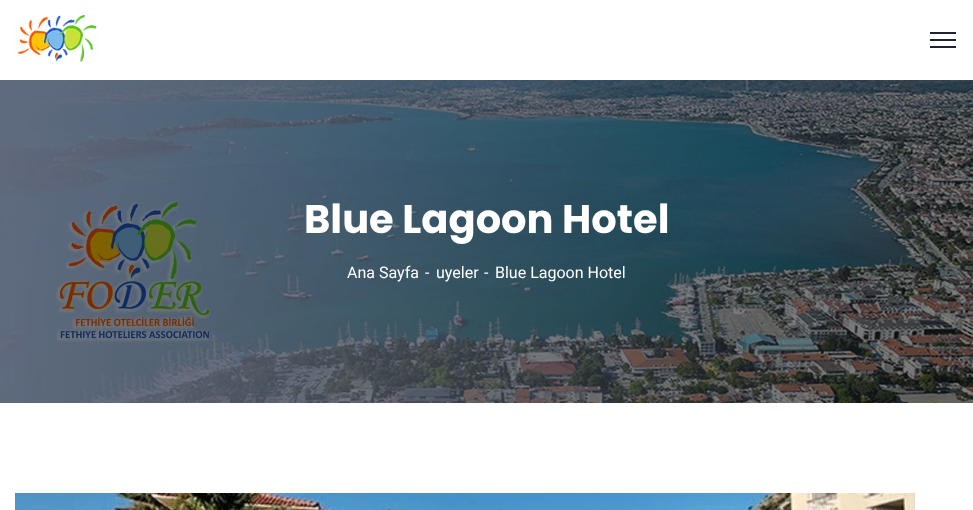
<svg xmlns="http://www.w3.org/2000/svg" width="973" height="510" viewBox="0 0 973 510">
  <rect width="100%" height="100%" fill="#ffffff"/>
  <image x="17" y="15" width="80" height="47" href="img1.png"/>
  <rect x="930" y="32" width="26" height="2" fill="#1f2233"/>
  <rect x="930" y="39" width="26" height="2" fill="#1f2233"/>
  <rect x="930" y="46" width="26" height="2" fill="#1f2233"/>
  <image x="0" y="80" width="973" height="323" href="img2.png"/>
  <text x="304" y="233" font-family="Poppins" font-size="40" font-weight="bold" fill="#ffffff">Blue Lagoon Hotel</text>
  <text x="347" y="278" font-family="Roboto" font-size="16" fill="#ffffff">Ana Sayfa</text>
  <text x="425" y="278" font-family="Roboto" font-size="16" fill="#ffffff">-</text>
  <text x="436" y="278" font-family="Roboto" font-size="16" fill="#ffffff">uyeler</text>
  <text x="484" y="278" font-family="Roboto" font-size="16" fill="#ffffff">-</text>
  <text x="495" y="278" font-family="Roboto" font-size="16" fill="#ffffff">Blue Lagoon Hotel</text>
  <image x="15" y="493" width="900" height="17" href="img3.png"/>
</svg>
